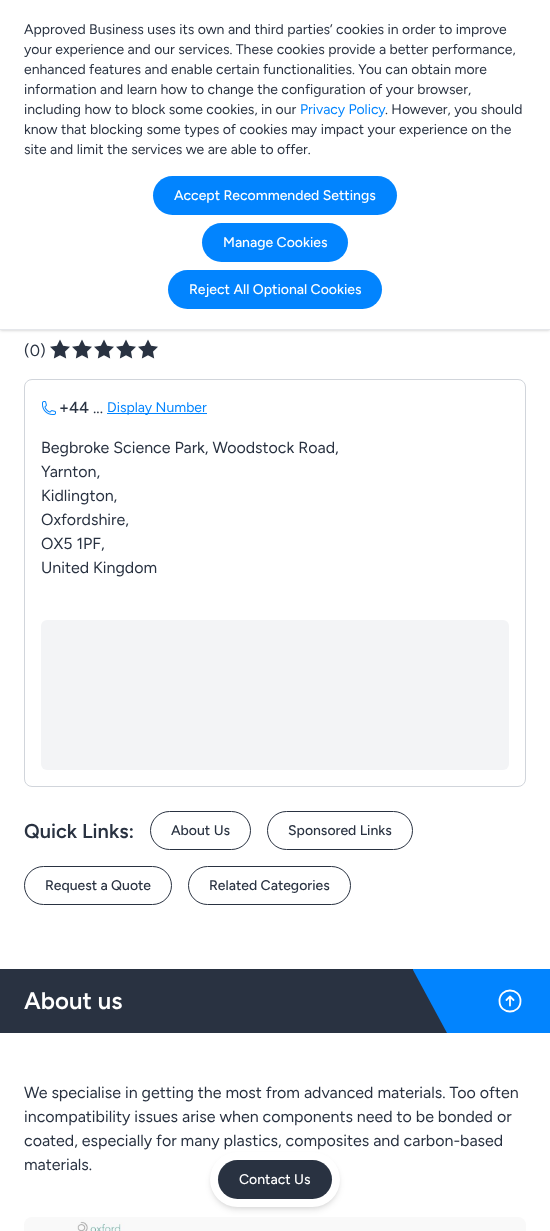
<svg xmlns="http://www.w3.org/2000/svg" width="550" height="1231" viewBox="0 0 550 1231">
  <defs>
    <filter id="blur1" x="-50%" y="-200%" width="200%" height="500%"><feGaussianBlur stdDeviation="1"/></filter>
    <filter id="blur2" x="-50%" y="-200%" width="200%" height="500%"><feGaussianBlur stdDeviation="1.5"/></filter>
    <filter id="blur3" x="-50%" y="-200%" width="200%" height="500%"><feGaussianBlur stdDeviation="2"/></filter>
    <filter id="blur4" x="-50%" y="-200%" width="200%" height="500%"><feGaussianBlur stdDeviation="3"/></filter>
  </defs>
  <rect width="100%" height="100%" fill="#ffffff"/>
  <rect x="1" y="2" width="548" height="328" fill="#000000" fill-opacity="0.1" filter="url(#blur1)"/>
  <rect x="0" y="1" width="550" height="330" fill="#000000" fill-opacity="0.1" filter="url(#blur2)"/>
  <rect x="0" y="0" width="550" height="329" fill="#ffffff"/>
  <rect x="0" y="329" width="550" height="1" fill="#e5e7eb"/>
  <text x="24" y="34" font-family="Figtree" font-size="14" fill="#293241">Approved Business uses its own and third parties’ cookies in order to improve</text>
  <text x="24" y="54" font-family="Figtree" font-size="14" fill="#293241">your experience and our services. These cookies provide a better performance,</text>
  <text x="24" y="74" font-family="Figtree" font-size="14" fill="#293241">enhanced features and enable certain functionalities. You can obtain more</text>
  <text x="24" y="94" font-family="Figtree" font-size="14" fill="#293241">information and learn how to change the configuration of your browser,</text>
  <text x="24" y="114" font-family="Figtree" font-size="14" fill="#293241">including how to block some cookies, in our</text>
  <text x="300" y="114" font-family="Figtree" font-size="14" fill="#0284fe">Privacy Policy</text>
  <text x="385" y="114" font-family="Figtree" font-size="14" fill="#293241">. However, you should</text>
  <text x="24" y="134" font-family="Figtree" font-size="14" fill="#293241">know that blocking some types of cookies may impact your experience on the</text>
  <text x="24" y="154" font-family="Figtree" font-size="14" fill="#293241">site and limit the services we are able to offer.</text>
  <rect x="153" y="176" width="244" height="39" rx="19.5" fill="#0284fe"/>
  <text x="174" y="200" font-family="Figtree" font-size="14" font-weight="500" fill="#ffffff">Accept Recommended Settings</text>
  <rect x="202" y="223" width="146" height="39" rx="19.5" fill="#0284fe"/>
  <text x="223" y="247" font-family="Figtree" font-size="14" font-weight="500" fill="#ffffff">Manage Cookies</text>
  <rect x="168" y="270" width="214" height="39" rx="19.5" fill="#0284fe"/>
  <text x="189" y="294" font-family="Figtree" font-size="14" font-weight="500" fill="#ffffff">Reject All Optional Cookies</text>
  <text x="24" y="356" font-family="Figtree" font-size="16" fill="#293241">(0)</text>
  <image x="50" y="339" width="20" height="20" href="img1.png"/>
  <image x="72" y="339" width="20" height="20" href="img1.png"/>
  <image x="94" y="339" width="20" height="20" href="img1.png"/>
  <image x="116" y="339" width="20" height="20" href="img1.png"/>
  <image x="138" y="339" width="20" height="20" href="img1.png"/>
  <rect x="24.5" y="379.5" width="501" height="407" rx="7.5" fill="none" stroke="#d1d5db"/>
  <image x="42" y="401" width="14" height="14" href="img2.png"/>
  <text x="59" y="413" font-family="Figtree" font-size="16" font-weight="500" fill="#293241">+44</text>
  <text x="93" y="413" font-family="Figtree" font-size="16" fill="#293241">...</text>
  <rect x="107" y="413" width="100" height="1" fill="#0284fe"/>
  <text x="107" y="412" font-family="Figtree" font-size="14" fill="#0284fe">Display Number</text>
  <text x="41" y="453" font-family="Figtree" font-size="16" fill="#293241">Begbroke Science Park, Woodstock Road,</text>
  <text x="41" y="477" font-family="Figtree" font-size="16" fill="#293241">Yarnton,</text>
  <text x="41" y="501" font-family="Figtree" font-size="16" fill="#293241">Kidlington,</text>
  <text x="41" y="525" font-family="Figtree" font-size="16" fill="#293241">Oxfordshire,</text>
  <text x="41" y="549" font-family="Figtree" font-size="16" fill="#293241">OX5 1PF,</text>
  <text x="41" y="573" font-family="Figtree" font-size="16" fill="#293241">United Kingdom</text>
  <rect x="41" y="620" width="468" height="150" rx="6" fill="#f3f4f6"/>
  <text x="24" y="838" font-family="Figtree" font-size="20" font-weight="600" fill="#293241">Quick Links:</text>
  <rect x="150.5" y="811.5" width="100" height="38" rx="19" fill="none" stroke="#293241"/>
  <text x="171" y="835" font-family="Figtree" font-size="14" font-weight="500" fill="#293241">About Us</text>
  <rect x="267.5" y="811.5" width="145" height="38" rx="19" fill="none" stroke="#293241"/>
  <text x="288" y="835" font-family="Figtree" font-size="14" font-weight="500" fill="#293241">Sponsored Links</text>
  <rect x="24.5" y="866.5" width="147" height="38" rx="19" fill="none" stroke="#293241"/>
  <text x="45" y="890" font-family="Figtree" font-size="14" font-weight="500" fill="#293241">Request a Quote</text>
  <rect x="188.5" y="866.5" width="162" height="38" rx="19" fill="none" stroke="#293241"/>
  <text x="209" y="890" font-family="Figtree" font-size="14" font-weight="500" fill="#293241">Related Categories</text>
  <rect x="0" y="969" width="447" height="64" fill="#293241"/>
  <text x="24" y="1009" font-family="Figtree" font-size="24" font-weight="600" fill="#ffffff">About us</text>
  <path d="M413 969V970L447 1033H550V969Z" fill="#0284fe"/>
  <path d="M513.5 1000L510 996.5M510 996.5L506.5 1000M510 996.5V1005.5M520.5 1001C520.5 1015 499.5 1015 499.5 1001C499.5 987 520.5 987 520.5 1001Z" fill="none" stroke="#ffffff" stroke-width="1.8" stroke-linecap="round" stroke-linejoin="round"/>
  <text x="24" y="1098" font-family="Figtree" font-size="16" fill="#293241">We specialise in getting the most from advanced materials. Too often</text>
  <text x="24" y="1122" font-family="Figtree" font-size="16" fill="#293241">incompatibility issues arise when components need to be bonded or</text>
  <text x="24" y="1146" font-family="Figtree" font-size="16" fill="#293241">coated, especially for many plastics, composites and carbon-based</text>
  <text x="24" y="1170" font-family="Figtree" font-size="16" fill="#293241">materials.</text>
  <image x="24" y="1217" width="502" height="14" href="img3.png"/>
  <rect x="212" y="1156" width="126" height="51" rx="25.5" fill="#000000" fill-opacity="0.1" filter="url(#blur3)"/>
  <rect x="211" y="1157" width="128" height="53" rx="26.5" fill="#000000" fill-opacity="0.1" filter="url(#blur4)"/>
  <rect x="210" y="1152" width="130" height="55" rx="27.5" fill="#ffffff"/>
  <rect x="218" y="1160" width="114" height="39" rx="19.5" fill="#293241"/>
  <text x="239" y="1184" font-family="Figtree" font-size="14" font-weight="500" fill="#ffffff">Contact Us</text>
</svg>
